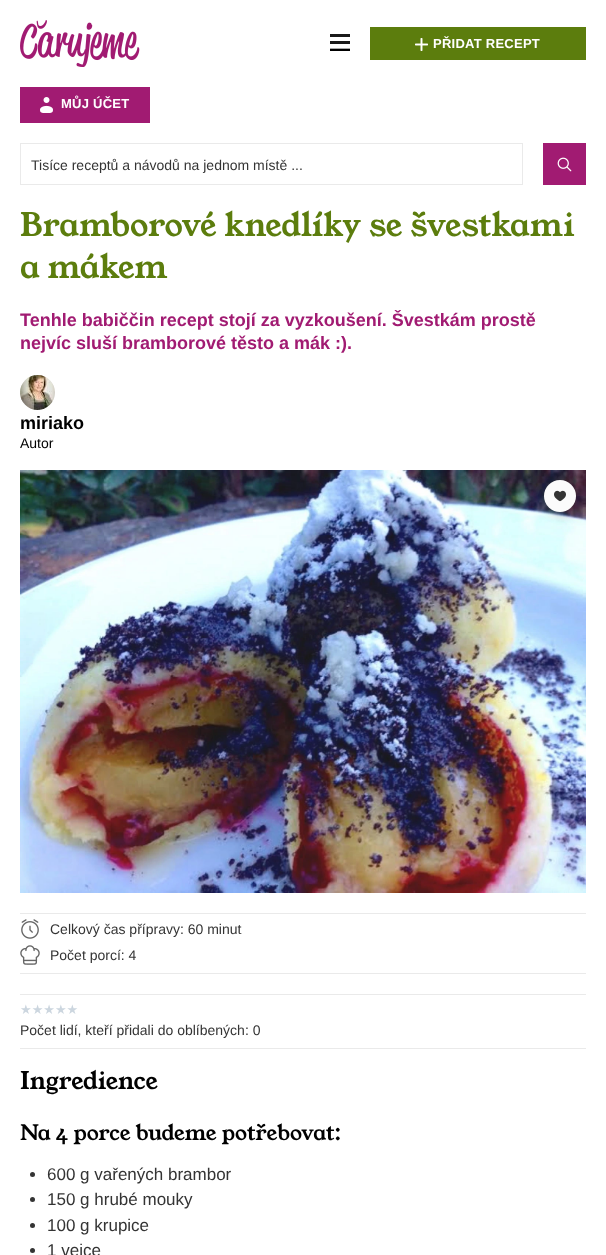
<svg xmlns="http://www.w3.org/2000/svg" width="606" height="1255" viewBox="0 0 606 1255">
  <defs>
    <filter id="blur1" x="-50%" y="-200%" width="200%" height="500%"><feGaussianBlur stdDeviation="5"/></filter>
  </defs>
  <rect width="100%" height="100%" fill="#ffffff"/>
  <image x="20" y="20" width="120" height="47" href="img1.png"/>
  <image x="330" y="34" width="20" height="17" href="img2.png"/>
  <rect x="370" y="27" width="216" height="33" fill="#5c7d0d"/>
  <image x="415" y="38" width="13" height="13" href="img3.png"/>
  <text x="433" y="48" font-family="Liberation Sans" font-size="13" font-weight="bold" letter-spacing="0.25" fill="#ffffff">PŘIDAT RECEPT</text>
  <rect x="20" y="87" width="130" height="36" fill="#a11b72"/>
  <image x="40" y="97" width="13" height="16" href="img4.png"/>
  <text x="61" y="108" font-family="Liberation Sans" font-size="13" font-weight="bold" letter-spacing="0.25" fill="#ffffff">MŮJ ÚČET</text>
  <rect x="20.5" y="143.5" width="502" height="41" fill="none" stroke="#eaeaea"/>
  <text x="31" y="170" font-family="Liberation Sans" font-size="14" fill="#343434">Tisíce receptů a návodů na jednom místě ...</text>
  <rect x="543" y="143" width="43" height="42" fill="#a11b72"/>
  <image x="557" y="157" width="15" height="15" href="img5.png"/>
  <text x="20" y="236" font-family="Young Serif" font-size="32" fill="#5c7d0d">Bramborové knedlíky se švestkami</text>
  <text x="20" y="278" font-family="Young Serif" font-size="32" fill="#5c7d0d">a mákem</text>
  <text x="20" y="326" font-family="Liberation Sans" font-size="18" font-weight="bold" fill="#a11b72">Tenhle babiččin recept stojí za vyzkoušení. Švestkám prostě</text>
  <text x="20" y="349" font-family="Liberation Sans" font-size="18" font-weight="bold" fill="#a11b72">nejvíc sluší bramborové těsto a mák :).</text>
  <image x="20" y="375" width="35" height="35" href="img6.png"/>
  <text x="20" y="429" font-family="Liberation Sans" font-size="18" font-weight="bold" fill="#000000">miriako</text>
  <text x="20" y="448" font-family="Liberation Sans" font-size="14" fill="#000000">Autor</text>
  <image x="20" y="470" width="566" height="423" href="img8.png"/>
  <rect x="547" y="484" width="32" height="32" rx="16" fill="#000000" fill-opacity="0.2" filter="url(#blur1)"/>
  <circle cx="560" cy="496" r="16" fill="#fbfbfb"/>
  <image x="554" y="490" width="12" height="12" href="img7.png"/>
  <rect x="20" y="913" width="566" height="1" fill="#eaeaea"/>
  <rect x="20" y="973" width="566" height="1" fill="#eaeaea"/>
  <image x="21" y="919" width="18" height="20" href="img9.png"/>
  <text x="50" y="934" font-family="Liberation Sans" font-size="14" fill="#343434">Celkový čas přípravy: 60 minut</text>
  <image x="20" y="945" width="20" height="20" href="img10.png"/>
  <text x="50" y="960" font-family="Liberation Sans" font-size="14" fill="#343434">Počet porcí: 4</text>
  <rect x="20" y="994" width="566" height="1" fill="#eaeaea"/>
  <rect x="20" y="1048" width="566" height="1" fill="#eaeaea"/>
  <text x="20" y="1014" font-family="DejaVu Sans" font-size="13" fill="#ccd6df">★★★★★</text>
  <text x="20" y="1035" font-family="Liberation Sans" font-size="14" fill="#343434">Počet lidí, kteří přidali do oblíbených: 0</text>
  <text x="20" y="1089" font-family="Young Serif" font-size="24" fill="#000000">Ingredience</text>
  <text x="20" y="1140" font-family="Young Serif" font-size="21" fill="#000000">Na 4 porce budeme potřebovat:</text>
  <circle cx="32.5" cy="1174.5" r="2.5" fill="#343434"/>
  <text x="47" y="1180" font-family="Liberation Sans" font-size="17" fill="#343434">600 g vařených brambor</text>
  <circle cx="32.5" cy="1199.5" r="2.5" fill="#343434"/>
  <text x="47" y="1205" font-family="Liberation Sans" font-size="17" fill="#343434">150 g hrubé mouky</text>
  <circle cx="32.5" cy="1225.5" r="2.5" fill="#343434"/>
  <text x="47" y="1231" font-family="Liberation Sans" font-size="17" fill="#343434">100 g krupice</text>
  <circle cx="32.5" cy="1250.5" r="2.5" fill="#343434"/>
  <text x="47" y="1256" font-family="Liberation Sans" font-size="17" fill="#343434">1 vejce</text>
</svg>
